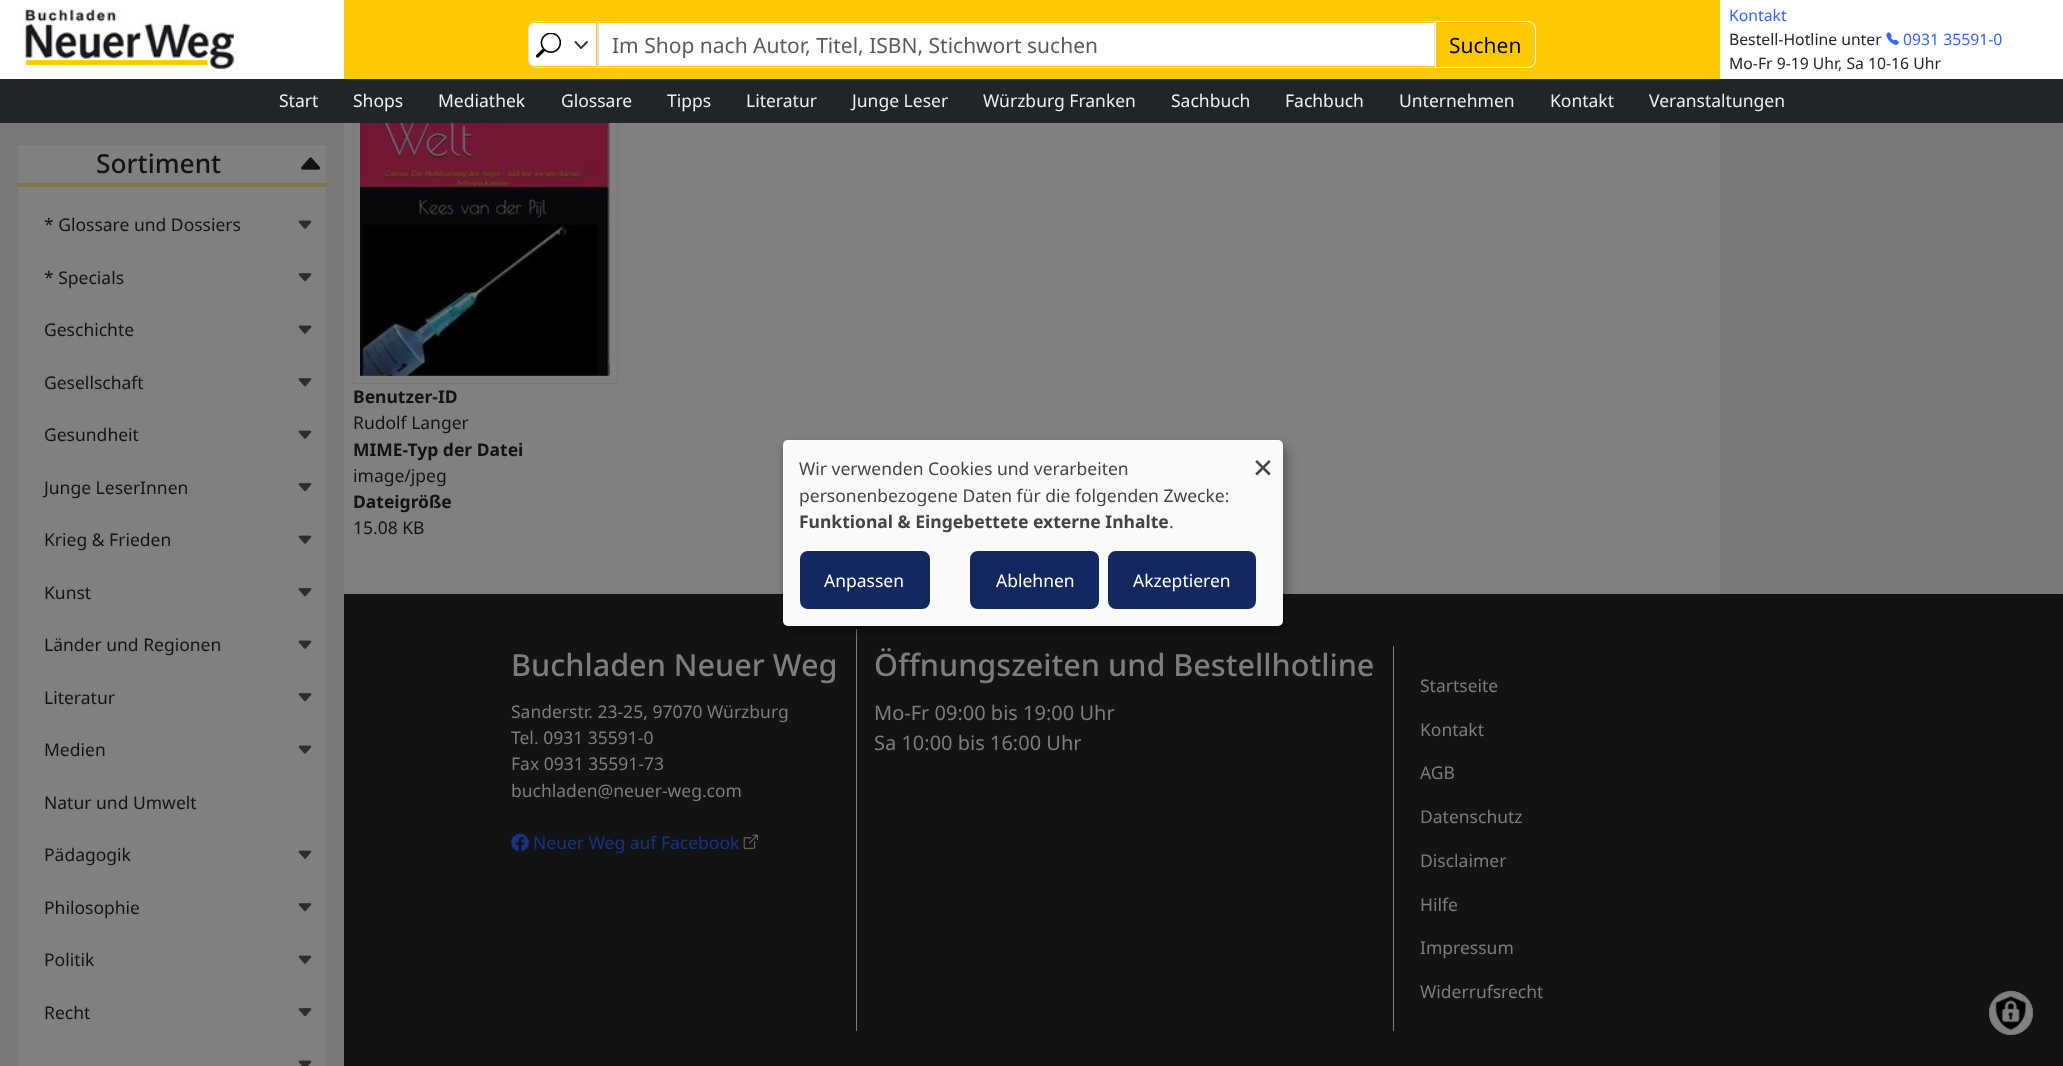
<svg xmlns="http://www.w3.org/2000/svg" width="2063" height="1066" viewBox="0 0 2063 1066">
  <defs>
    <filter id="blur1" x="-50%" y="-200%" width="200%" height="500%"><feGaussianBlur stdDeviation="6"/></filter>
    <filter id="blur2" x="-50%" y="-200%" width="200%" height="500%"><feGaussianBlur stdDeviation="4"/></filter>
  </defs>
  <rect width="100%" height="100%" fill="#808080"/>
  <rect x="353.5" y="-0.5" width="264" height="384" fill="none" stroke="#777777"/>
  <rect x="344" y="0" width="1376" height="79" fill="#fdca01"/>
  <rect x="0" y="0" width="344" height="79" fill="#ffffff"/>
  <image x="20" y="8" width="219" height="62" href="img1.png"/>
  <path d="M535 23H596V66H535C531.5 66 529 63.5 529 60V29C529 25.5 531.5 23 535 23Z" fill="#ffffff"/>
  <path d="M575.5 42L581 48L587 42" fill="none" stroke="#343a40" stroke-width="1.9" stroke-linecap="round" stroke-linejoin="round"/>
  <path d="M536 21.5H597.5V67.5H536C532 67.5 528.5 64 528.5 60V29C528.5 25 532 21.5 536 21.5Z" fill="none" stroke="#dee2e6"/>
  <image x="536" y="33" width="25" height="25" href="img2.png"/>
  <rect x="599" y="23" width="835" height="43" fill="#ffffff"/>
  <rect x="598.5" y="21.5" width="836" height="46" fill="none" stroke="#dee2e6"/>
  <text x="612" y="53" font-family="Noto Sans" font-size="21" fill="#595c5f">Im Shop nach Autor, Titel, ISBN, Stichwort suchen</text>
  <path d="M1435.5 21.5H1528C1532 21.5 1535.5 25 1535.5 29V60C1535.5 64 1532 67.5 1528 67.5H1435.5Z" fill="none" stroke="#ffffff"/>
  <text x="1449" y="53" font-family="Noto Sans" font-size="21" fill="#000000">Suchen</text>
  <rect x="1720" y="0" width="343" height="79" fill="#ffffff"/>
  <text x="1729" y="21" font-family="Noto Sans" font-size="15.75" fill="#3366ff">Kontakt</text>
  <text x="1729" y="45" font-family="Noto Sans" font-size="15.75" fill="#212529">Bestell-Hotline unter</text>
  <image x="1886" y="32" width="13" height="13" href="img3.png"/>
  <text x="1903" y="45" font-family="Noto Sans" font-size="15.75" fill="#3366ff">0931 35591-0</text>
  <text x="1729" y="69" font-family="Noto Sans" font-size="15.75" fill="#212529">Mo-Fr 9-19 Uhr, Sa 10-16 Uhr</text>
  <rect x="0" y="79" width="2063" height="44" fill="#212529"/>
  <text x="279" y="107" font-family="Noto Sans" font-size="17.5" fill="#eeeeee">Start</text>
  <text x="353" y="107" font-family="Noto Sans" font-size="17.5" fill="#eeeeee">Shops</text>
  <text x="438" y="107" font-family="Noto Sans" font-size="17.5" fill="#eeeeee">Mediathek</text>
  <text x="561" y="107" font-family="Noto Sans" font-size="17.5" fill="#eeeeee">Glossare</text>
  <text x="667" y="107" font-family="Noto Sans" font-size="17.5" fill="#eeeeee">Tipps</text>
  <text x="746" y="107" font-family="Noto Sans" font-size="17.5" fill="#eeeeee">Literatur</text>
  <text x="852" y="107" font-family="Noto Sans" font-size="17.5" fill="#eeeeee">Junge Leser</text>
  <text x="983" y="107" font-family="Noto Sans" font-size="17.5" fill="#eeeeee">Würzburg Franken</text>
  <text x="1171" y="107" font-family="Noto Sans" font-size="17.5" fill="#eeeeee">Sachbuch</text>
  <text x="1285" y="107" font-family="Noto Sans" font-size="17.5" fill="#eeeeee">Fachbuch</text>
  <text x="1399" y="107" font-family="Noto Sans" font-size="17.5" fill="#eeeeee">Unternehmen</text>
  <text x="1550" y="107" font-family="Noto Sans" font-size="17.5" fill="#eeeeee">Kontakt</text>
  <text x="1649" y="107" font-family="Noto Sans" font-size="17.5" fill="#eeeeee">Veranstaltungen</text>
  <rect x="0" y="123" width="344" height="943" fill="#797877"/>
  <rect x="18" y="145" width="308" height="921" fill="#808080"/>
  <rect x="18" y="183" width="308" height="4" fill="#7f754d"/>
  <text x="96" y="173" font-family="Noto Sans" font-size="26.25" font-weight="500" fill="#111315">Sortiment</text>
  <image x="301" y="157" width="20" height="13" href="img4.png"/>
  <text x="44" y="231" font-family="Noto Sans" font-size="17.5" fill="#111315">* Glossare und Dossiers</text>
  <image x="298" y="220" width="14" height="9" href="img5.png"/>
  <text x="44" y="284" font-family="Noto Sans" font-size="17.5" fill="#111315">* Specials</text>
  <image x="298" y="273" width="14" height="9" href="img6.png"/>
  <text x="44" y="336" font-family="Noto Sans" font-size="17.5" fill="#111315">Geschichte</text>
  <image x="298" y="325" width="14" height="9" href="img5.png"/>
  <text x="44" y="389" font-family="Noto Sans" font-size="17.5" fill="#111315">Gesellschaft</text>
  <image x="298" y="378" width="14" height="9" href="img6.png"/>
  <text x="44" y="441" font-family="Noto Sans" font-size="17.5" fill="#111315">Gesundheit</text>
  <image x="298" y="430" width="14" height="9" href="img5.png"/>
  <text x="44" y="494" font-family="Noto Sans" font-size="17.5" fill="#111315">Junge LeserInnen</text>
  <image x="298" y="483" width="14" height="9" href="img6.png"/>
  <text x="44" y="546" font-family="Noto Sans" font-size="17.5" fill="#111315">Krieg &amp; Frieden</text>
  <image x="298" y="535" width="14" height="9" href="img5.png"/>
  <text x="44" y="599" font-family="Noto Sans" font-size="17.5" fill="#111315">Kunst</text>
  <image x="298" y="588" width="14" height="9" href="img6.png"/>
  <text x="44" y="651" font-family="Noto Sans" font-size="17.5" fill="#111315">Länder und Regionen</text>
  <image x="298" y="640" width="14" height="9" href="img5.png"/>
  <text x="44" y="704" font-family="Noto Sans" font-size="17.5" fill="#111315">Literatur</text>
  <image x="298" y="693" width="14" height="9" href="img6.png"/>
  <text x="44" y="756" font-family="Noto Sans" font-size="17.5" fill="#111315">Medien</text>
  <image x="298" y="745" width="14" height="9" href="img5.png"/>
  <text x="44" y="809" font-family="Noto Sans" font-size="17.5" fill="#111315">Natur und Umwelt</text>
  <text x="44" y="861" font-family="Noto Sans" font-size="17.5" fill="#111315">Pädagogik</text>
  <image x="298" y="850" width="14" height="9" href="img5.png"/>
  <text x="44" y="914" font-family="Noto Sans" font-size="17.5" fill="#111315">Philosophie</text>
  <image x="298" y="903" width="14" height="9" href="img6.png"/>
  <text x="44" y="966" font-family="Noto Sans" font-size="17.5" fill="#111315">Politik</text>
  <image x="298" y="955" width="14" height="9" href="img5.png"/>
  <text x="44" y="1019" font-family="Noto Sans" font-size="17.5" fill="#111315">Recht</text>
  <image x="298" y="1008" width="14" height="9" href="img6.png"/>
  <image x="298" y="1060" width="14" height="6" href="img7.png"/>
  <image x="360" y="123" width="250" height="253" href="img8.png"/>
  <text x="353" y="403" font-family="Noto Sans" font-size="17.5" font-weight="bold" fill="#111315">Benutzer-ID</text>
  <text x="353" y="429" font-family="Noto Sans" font-size="17.5" fill="#111315">Rudolf Langer</text>
  <text x="353" y="456" font-family="Noto Sans" font-size="17.5" font-weight="bold" fill="#111315">MIME-Typ der Datei</text>
  <text x="353" y="482" font-family="Noto Sans" font-size="17.5" fill="#111315">image/jpeg</text>
  <text x="353" y="508" font-family="Noto Sans" font-size="17.5" font-weight="bold" fill="#111315">Dateigröße</text>
  <text x="353" y="534" font-family="Noto Sans" font-size="17.5" fill="#111315">15.08 KB</text>
  <rect x="1720" y="123" width="343" height="471" fill="#797877"/>
  <rect x="344" y="594" width="1719" height="472" fill="#111315"/>
  <text x="511" y="676" font-family="Noto Sans" font-size="30.6" font-weight="500" fill="#7c7d7d">Buchladen Neuer Weg</text>
  <text x="511" y="718" font-family="Noto Sans" font-size="17.5" fill="#7c7d7d">Sanderstr. 23-25, 97070 Würzburg</text>
  <text x="511" y="744" font-family="Noto Sans" font-size="17.5" fill="#7c7d7d">Tel. 0931 35591-0</text>
  <text x="511" y="770" font-family="Noto Sans" font-size="17.5" fill="#7c7d7d">Fax 0931 35591-73</text>
  <text x="511" y="797" font-family="Noto Sans" font-size="17.5" fill="#7c7d7d">buchladen@neuer-weg.com</text>
  <image x="511" y="833" width="18" height="19" href="img9.png"/>
  <text x="533" y="849" font-family="Noto Sans" font-size="17.5" fill="#1a3380">Neuer Weg auf Facebook</text>
  <image x="743" y="834" width="15" height="15" href="img10.png"/>
  <rect x="856" y="629" width="1" height="402" fill="#808080"/>
  <text x="874" y="676" font-family="Noto Sans" font-size="30.6" font-weight="500" fill="#7c7d7d">Öffnungszeiten und Bestellhotline</text>
  <text x="874" y="720" font-family="Noto Sans" font-size="20" fill="#7c7d7d">Mo-Fr 09:00 bis 19:00 Uhr</text>
  <text x="874" y="750" font-family="Noto Sans" font-size="20" fill="#7c7d7d">Sa 10:00 bis 16:00 Uhr</text>
  <rect x="1393" y="646" width="1" height="385" fill="#808080"/>
  <text x="1420" y="692" font-family="Noto Sans" font-size="17.5" fill="#7c7d7d">Startseite</text>
  <text x="1420" y="736" font-family="Noto Sans" font-size="17.5" fill="#7c7d7d">Kontakt</text>
  <text x="1420" y="779" font-family="Noto Sans" font-size="17.5" fill="#7c7d7d">AGB</text>
  <text x="1420" y="823" font-family="Noto Sans" font-size="17.5" fill="#7c7d7d">Datenschutz</text>
  <text x="1420" y="867" font-family="Noto Sans" font-size="17.5" fill="#7c7d7d">Disclaimer</text>
  <text x="1420" y="911" font-family="Noto Sans" font-size="17.5" fill="#7c7d7d">Hilfe</text>
  <text x="1420" y="954" font-family="Noto Sans" font-size="17.5" fill="#7c7d7d">Impressum</text>
  <text x="1420" y="998" font-family="Noto Sans" font-size="17.5" fill="#7c7d7d">Widerrufsrecht</text>
  <rect x="789" y="446" width="500" height="187" rx="5" fill="#000000" fill-opacity="0.19" filter="url(#blur1)"/>
  <rect x="783" y="445" width="500" height="186" rx="5" fill="#000000" fill-opacity="0.2" filter="url(#blur2)"/>
  <rect x="783" y="440" width="500" height="186" rx="5" fill="#fafafa"/>
  <text x="799" y="475" font-family="Noto Sans" font-size="17.5" fill="#444444">Wir verwenden Cookies und verarbeiten</text>
  <text x="799" y="502" font-family="Noto Sans" font-size="17.5" fill="#444444">personenbezogene Daten für die folgenden Zwecke:</text>
  <text x="799" y="528" font-family="Noto Sans" font-size="17.5" font-weight="bold" fill="#444444">Funktional &amp; Eingebettete externe Inhalte</text>
  <text x="1169" y="528" font-family="Noto Sans" font-size="17.5" fill="#444444">.</text>
  <rect x="802" y="553" width="126" height="54" rx="6" fill="#12285f" stroke="#12285f" stroke-width="4"/>
  <text x="824" y="587" font-family="Noto Sans" font-size="17.5" fill="#ffffff">Anpassen</text>
  <rect x="972" y="553" width="125" height="54" rx="6" fill="#12285f" stroke="#12285f" stroke-width="4"/>
  <text x="996" y="587" font-family="Noto Sans" font-size="17.5" fill="#ffffff">Ablehnen</text>
  <rect x="1110" y="553" width="144" height="54" rx="6" fill="#12285f" stroke="#12285f" stroke-width="4"/>
  <text x="1133" y="587" font-family="Noto Sans" font-size="17.5" fill="#ffffff">Akzeptieren</text>
  <text x="1253" y="480" font-family="Noto Sans" font-size="35" fill="#444444">×</text>
  <circle cx="2011" cy="1013" r="22" fill="#808080"/>
  <image x="1995" y="996" width="31" height="35" href="img11.png"/>
  <circle cx="2011" cy="1013" r="21.5" fill="none" stroke="#757575"/>
</svg>
